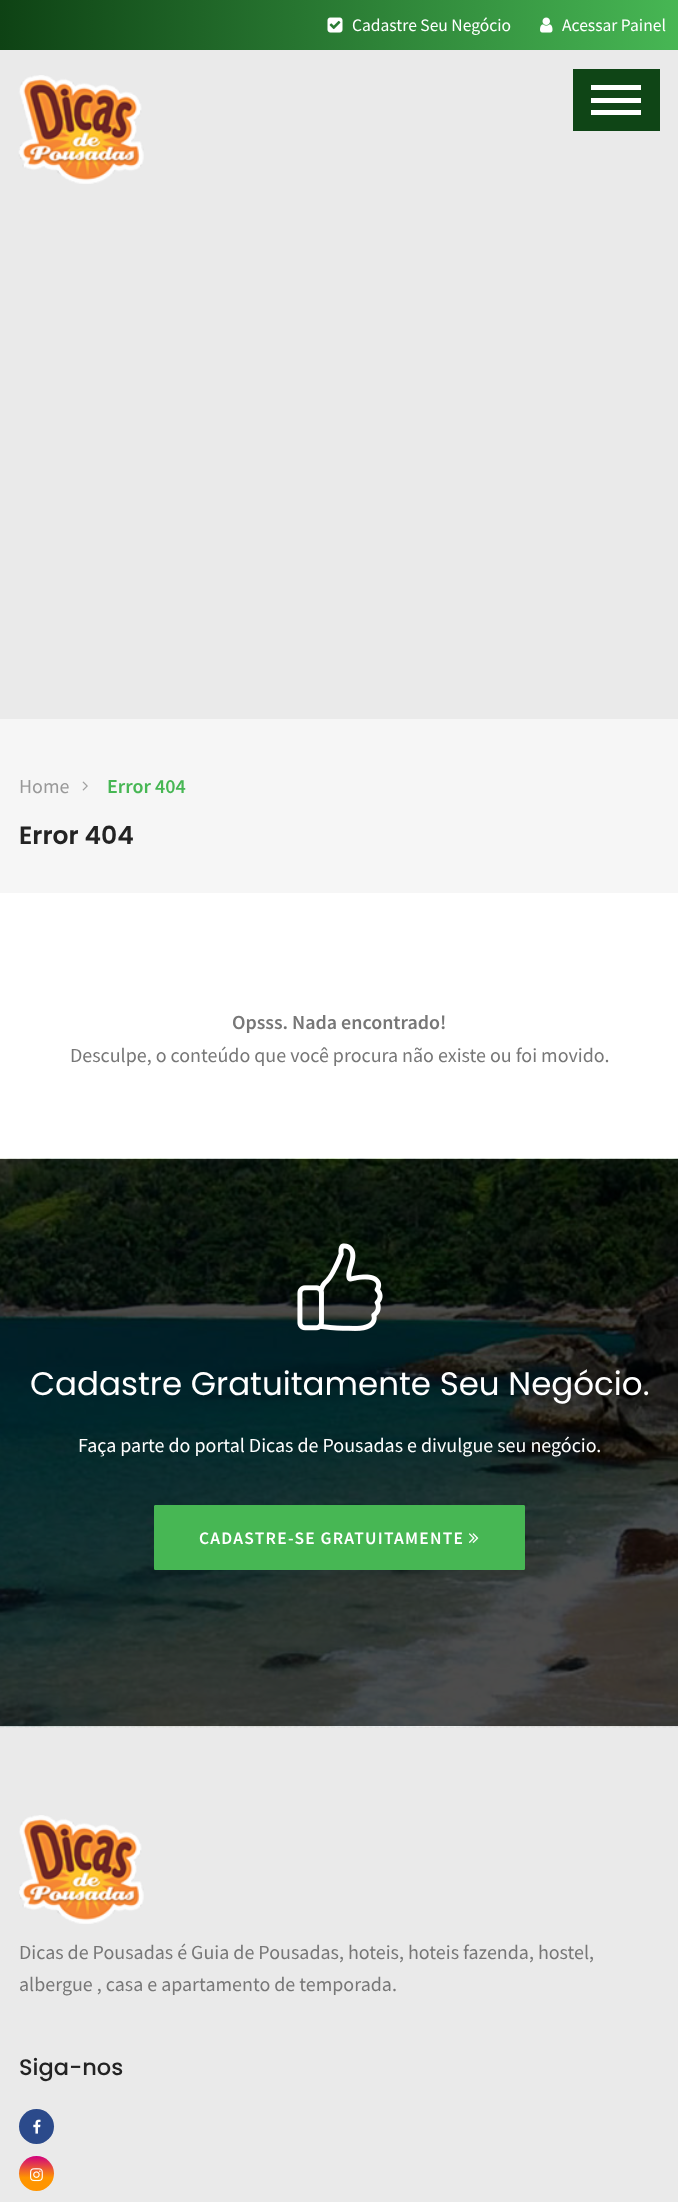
<svg xmlns="http://www.w3.org/2000/svg" width="678" height="2202" viewBox="0 0 678 2202">
  <defs>
    <linearGradient id="g1" gradientUnits="userSpaceOnUse" x1="0" y1="25" x2="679" y2="25"><stop offset="0" stop-color="#0e4214"/><stop offset="1" stop-color="#47b754"/></linearGradient>
    <linearGradient id="g2" gradientUnits="userSpaceOnUse" x1="36" y1="2156" x2="36" y2="2191"><stop offset="0" stop-color="#d1007f"/><stop offset="0.62" stop-color="#ff9500"/></linearGradient>
  </defs>
  <rect width="100%" height="100%" fill="#ffffff"/>
  <rect x="0" y="0" width="678" height="50" fill="url(#g1)"/>
  <image x="327" y="17" width="16" height="16" href="img1.png"/>
  <text x="352" y="31" font-family="Source Sans Pro" font-size="17.5" fill="#ffffff">Cadastre Seu Negócio</text>
  <image x="540" y="17" width="13" height="16" href="img2.png"/>
  <text x="562" y="31" font-family="Source Sans Pro" font-size="17.5" fill="#ffffff">Acessar Painel</text>
  <rect x="0" y="50" width="678" height="669" fill="#eaeaea"/>
  <image x="18" y="75" width="126" height="109" href="img3.png"/>
  <rect x="573" y="69" width="87" height="62" fill="#0f4516"/>
  <rect x="591" y="85" width="50" height="5" fill="#ffffff"/>
  <rect x="591" y="98" width="50" height="5" fill="#ffffff"/>
  <rect x="591" y="110" width="50" height="5" fill="#ffffff"/>
  <rect x="0" y="719" width="678" height="174" fill="#f6f6f6"/>
  <text x="19" y="793" font-family="Source Sans Pro" font-size="20" fill="#999999">Home</text>
  <image x="82" y="781" width="6" height="10" href="img4.png"/>
  <text x="107" y="793" font-family="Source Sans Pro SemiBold" font-size="20" font-weight="600" fill="#47b754">Error 404</text>
  <text x="19" y="844" font-family="Poppins" font-size="25" font-weight="600" fill="#232323">Error 404</text>
  <text x="232" y="1029" font-family="Source Sans Pro SemiBold" font-size="20" font-weight="600" fill="#777777">Opsss. Nada encontrado!</text>
  <text x="70" y="1062" font-family="Source Sans Pro" font-size="20" fill="#777777">Desculpe, o conteúdo que você procura não existe ou foi movido.</text>
  <rect x="0" y="1726" width="678" height="476" fill="#eaeaea"/>
  <path d="M0 1727H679" fill="none" stroke="#dddddd" stroke-width="1.2" stroke-dasharray="3.75 2.5"/>
  <image x="0" y="1158" width="678" height="569" href="img5.png"/>
  <image x="297" y="1243" width="86" height="88" href="img6.png"/>
  <text x="30" y="1395" font-family="Poppins" font-size="32.5" fill="#ffffff">Cadastre Gratuitamente Seu Negócio.</text>
  <text x="78" y="1452" font-family="Source Sans Pro" font-size="20" fill="#ffffff">Faça parte do portal Dicas de Pousadas e divulgue seu negócio.</text>
  <rect x="154.5" y="1505.5" width="370" height="64" rx="0.5" fill="#47b754" stroke="#47b754"/>
  <text x="199" y="1544" font-family="Source Sans Pro SemiBold" font-size="17.5" font-weight="600" letter-spacing="1.25" fill="#ffffff">CADASTRE-SE GRATUITAMENTE</text>
  <image x="468" y="1533" width="11" height="10" href="img7.png"/>
  <image x="19" y="1815" width="125" height="109" href="img8.png"/>
  <text x="19" y="1959" font-family="Source Sans Pro" font-size="20" fill="#777777">Dicas de Pousadas é Guia de Pousadas, hoteis, hoteis fazenda, hostel,</text>
  <text x="19" y="1991" font-family="Source Sans Pro" font-size="20" fill="#777777">albergue , casa e apartamento de temporada.</text>
  <text x="19" y="2075" font-family="Poppins" font-size="22.5" font-weight="500" fill="#232323">Siga-nos</text>
  <circle cx="36.5" cy="2126.5" r="17.5" fill="#2b4a8b"/>
  <image x="33" y="2119" width="8" height="15" href="img9.png"/>
  <circle cx="36.5" cy="2173.5" r="17.5" fill="url(#g2)"/>
  <image x="30" y="2168" width="13" height="14" href="img10.png"/>
</svg>
